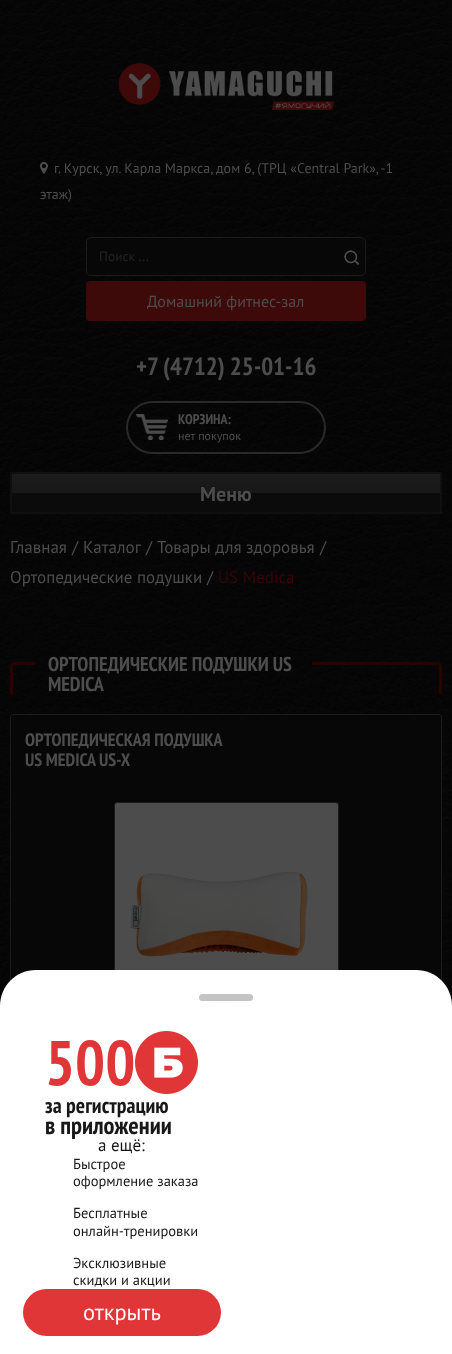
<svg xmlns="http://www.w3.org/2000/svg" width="452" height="1354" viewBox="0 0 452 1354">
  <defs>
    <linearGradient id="g1" gradientUnits="userSpaceOnUse" x1="226" y1="474" x2="226" y2="512"><stop offset="0" stop-color="#1c1c1c"/><stop offset="0.5" stop-color="#171717"/><stop offset="0.5" stop-color="#0b0b0b"/><stop offset="1" stop-color="#0b0b0b"/></linearGradient>
  </defs>
  <rect width="100%" height="100%" fill="#ffffff"/>
  <image x="0" y="0" width="452" height="1006" href="img1.png"/>
  <image x="118" y="63" width="216" height="47" href="img2.png"/>
  <image x="40" y="162" width="8" height="12" href="img3.png"/>
  <text x="54" y="173" font-family="PT Sans" font-size="14" fill="#4d4d4d">г. Курск, ул. Карла Маркса, дом 6, (ТРЦ «Central Park», -1</text>
  <text x="40" y="199" font-family="PT Sans" font-size="14" fill="#4d4d4d">этаж)</text>
  <rect x="86.5" y="237.5" width="279" height="38" rx="4.5" fill="#070707" stroke="#1b1b1b"/>
  <text x="99" y="261" font-family="PT Sans" font-size="13.5" fill="#232323">Поиск ...</text>
  <image x="344" y="250" width="15" height="15" href="img4.png"/>
  <rect x="87" y="282" width="278" height="38" rx="3" fill="#3d0909" stroke="#3d0909" stroke-width="2"/>
  <text x="147" y="307" font-family="PT Sans" font-size="16" fill="#4d4d4d">Домашний фитнес-зал</text>
  <text x="136" y="375" font-family="PT Sans Narrow" font-size="25" font-weight="bold" fill="#4d4d4d">+7 (4712) 25-01-16</text>
  <rect x="127" y="402" width="198" height="51" rx="25.5" fill="none" stroke="#292929" stroke-width="2"/>
  <image x="136" y="414" width="32" height="26" href="img5.png"/>
  <text x="178" y="424" font-family="PT Sans Narrow" font-size="14" font-weight="bold" fill="#4d4d4d">КОРЗИНА:</text>
  <text x="178" y="440" font-family="PT Sans" font-size="12" fill="#4d4d4d">нет покупок</text>
  <rect x="10.5" y="714.5" width="431" height="577" rx="2.5" fill="#070707" stroke="#1b1b1b"/>
  <rect x="114.5" y="802.5" width="224" height="224" rx="2.5" fill="none" stroke="#1b1b1b"/>
  <path d="M36 970H416C436 970 452 986 452 1006V1354H0V1006C0 986 16 970 36 970Z" fill="#ffffff"/>
  <rect x="199" y="994" width="32" height="7" rx="3.5" fill="#c4c4c4"/>
  <rect x="221" y="994" width="32" height="7" rx="3.5" fill="#c4c4c4"/>
  <text x="45" y="1085" font-family="PT Sans Narrow" font-size="63" font-weight="bold" fill="#e03638">500</text>
  <image x="135" y="1031" width="63" height="63" href="img6.png"/>
  <text x="45" y="1113" font-family="PT Sans Narrow" font-size="21.75" font-weight="bold" fill="#181818">за регистрацию</text>
  <text x="45" y="1134" font-family="PT Sans Narrow" font-size="24.5" font-weight="bold" fill="#181818">в приложении</text>
  <text x="98" y="1151" font-family="PT Sans" font-size="17" fill="#181818">а ещё:</text>
  <text x="73" y="1169" font-family="PT Sans" font-size="14.5" fill="#181818">Быстрое</text>
  <text x="73" y="1186" font-family="PT Sans" font-size="14.5" fill="#181818">оформление заказа</text>
  <text x="73" y="1218" font-family="PT Sans" font-size="14.5" fill="#181818">Бесплатные</text>
  <text x="73" y="1236" font-family="PT Sans" font-size="14.5" fill="#181818">онлайн-тренировки</text>
  <text x="73" y="1268" font-family="PT Sans" font-size="14.5" fill="#181818">Эксклюзивные</text>
  <text x="73" y="1285" font-family="PT Sans" font-size="14.5" fill="#181818">скидки и акции</text>
  <rect x="23" y="1289" width="198" height="47" rx="23.5" fill="#e03638"/>
  <text x="83" y="1320" font-family="PT Sans" font-size="22.5" fill="#ffffff">открыть</text>
  <rect x="12" y="474" width="428" height="38" fill="url(#g1)"/>
  <rect x="11" y="473" width="430" height="40" fill="none" stroke="#0f0f0f" stroke-width="2"/>
  <text x="200" y="501" font-family="PT Sans" font-size="20" font-weight="bold" fill="#4d4d4d">Меню</text>
  <text x="10" y="553" font-family="PT Sans" font-size="17" fill="#4d4d4d">Главная</text>
  <text x="72" y="553" font-family="PT Sans" font-size="17" fill="#4d4d4d">/</text>
  <text x="83" y="553" font-family="PT Sans" font-size="17" fill="#4d4d4d">Каталог</text>
  <text x="146" y="553" font-family="PT Sans" font-size="17" fill="#4d4d4d">/</text>
  <text x="157" y="553" font-family="PT Sans" font-size="17" fill="#4d4d4d">Товары для здоровья</text>
  <text x="320" y="553" font-family="PT Sans" font-size="17" fill="#4d4d4d">/</text>
  <text x="10" y="583" font-family="PT Sans" font-size="17" fill="#4d4d4d">Ортопедические подушки</text>
  <text x="207" y="583" font-family="PT Sans" font-size="17" fill="#4d4d4d">/</text>
  <text x="218" y="583" font-family="PT Sans" font-size="17" fill="#360605">US Medica</text>
  <path d="M15 662H35V694H10V667C10 664 12 662 15 662ZM15 665H35V694H13V667C13 666 14 665 15 665Z" fill="#270302" fill-rule="evenodd"/>
  <text x="48" y="671" font-family="PT Sans Narrow" font-size="20" font-weight="bold" fill="#4d4d4d">ОРТОПЕДИЧЕСКИЕ ПОДУШКИ US</text>
  <text x="48" y="691" font-family="PT Sans Narrow" font-size="20" font-weight="bold" fill="#4d4d4d">MEDICA</text>
  <path d="M312 662H437C440 662 442 664 442 667V694H312ZM312 665H437C438 665 439 666 439 667V694H312Z" fill="#270302" fill-rule="evenodd"/>
  <text x="25" y="746" font-family="PT Sans Narrow" font-size="18" font-weight="bold" fill="#4d4d4d">ОРТОПЕДИЧЕСКАЯ ПОДУШКА</text>
  <text x="25" y="766" font-family="PT Sans Narrow" font-size="18" font-weight="bold" fill="#4d4d4d">US MEDICA US-X</text>
  <image x="115" y="803" width="223" height="167" href="img7.png"/>
</svg>
